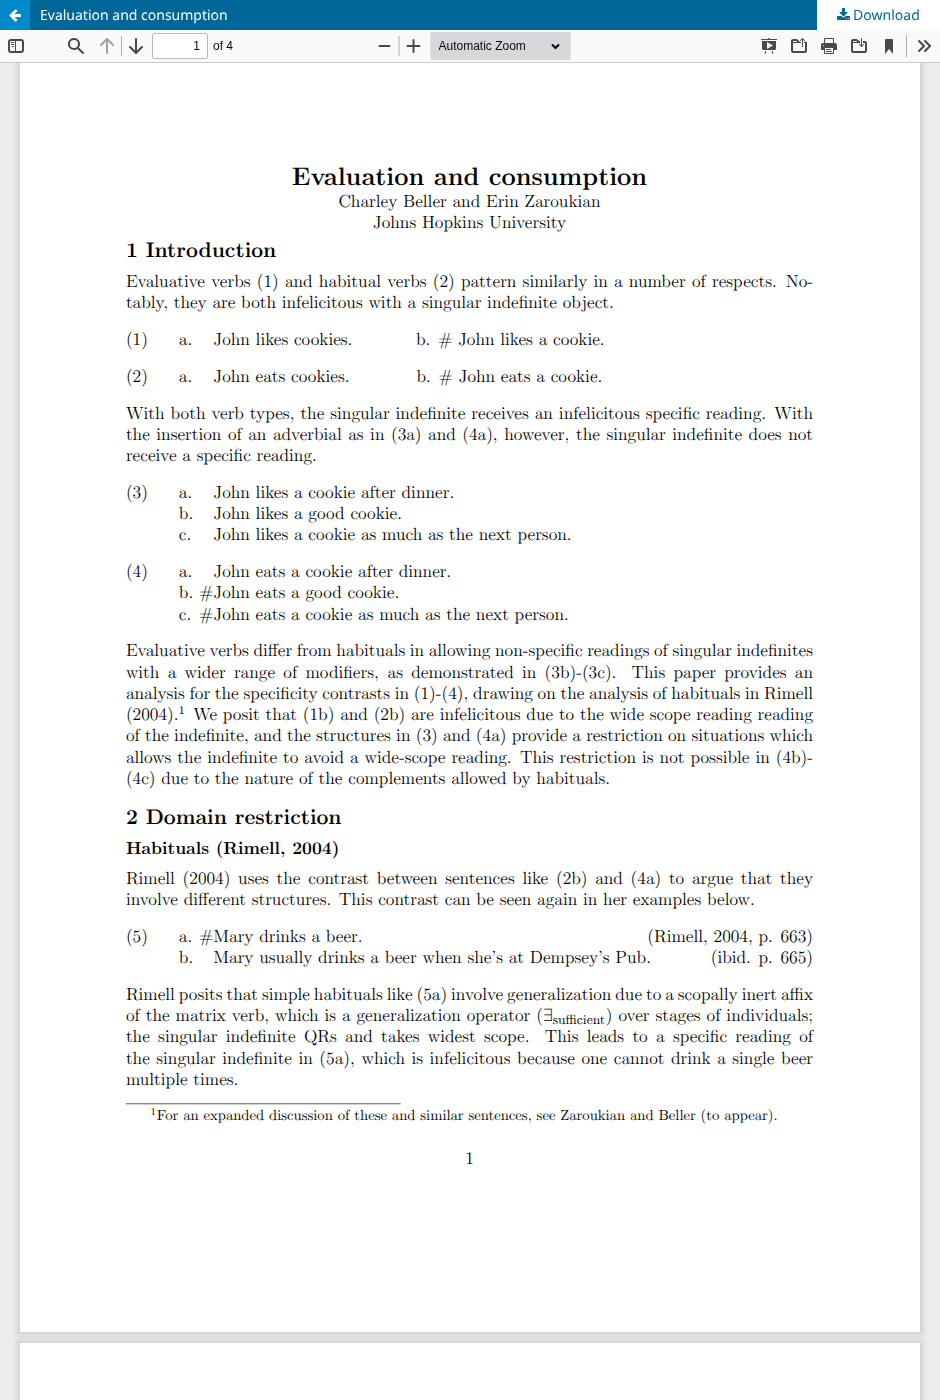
<svg xmlns="http://www.w3.org/2000/svg" width="940" height="1400" viewBox="0 0 940 1400">
  <rect width="100%" height="100%" fill="#ffffff"/>
  <rect x="30" y="0" width="787" height="30" fill="#006798"/>
  <rect x="0" y="0" width="30" height="30" fill="#008acb"/>
  <image x="9" y="9" width="12" height="13" href="img1.png"/>
  <text x="40" y="20" font-family="Noto Sans" font-size="14" fill="#ffffff">Evaluation and consumption</text>
  <image x="837" y="8" width="13" height="12" href="img2.png"/>
  <text x="853" y="20" font-family="Noto Sans" font-size="14" fill="#006798">Download</text>
  <image x="0" y="30" width="940" height="1370" href="img3.png"/>
</svg>
